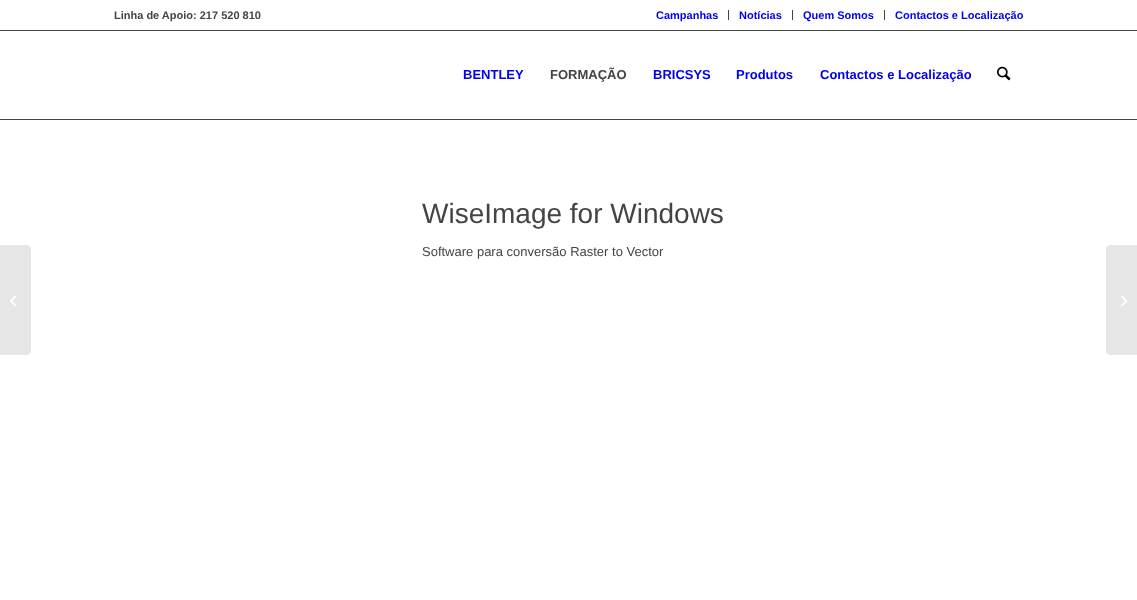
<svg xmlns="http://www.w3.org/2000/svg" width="1137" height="600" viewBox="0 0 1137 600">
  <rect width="100%" height="100%" fill="#ffffff"/>
  <text x="114" y="19" font-family="Liberation Sans" font-size="11" font-weight="bold" fill="#444444">Linha de Apoio: 217 520 810</text>
  <rect x="728" y="10" width="1" height="10" fill="#444444"/>
  <text x="656" y="19" font-family="Liberation Sans" font-size="11" font-weight="bold" fill="#0000ee">Campanhas</text>
  <rect x="792" y="10" width="1" height="10" fill="#444444"/>
  <text x="739" y="19" font-family="Liberation Sans" font-size="11" font-weight="bold" fill="#0000ee">Notícias</text>
  <rect x="884" y="10" width="1" height="10" fill="#444444"/>
  <text x="803" y="19" font-family="Liberation Sans" font-size="11" font-weight="bold" fill="#0000ee">Quem Somos</text>
  <text x="895" y="19" font-family="Liberation Sans" font-size="11" font-weight="bold" fill="#0000ee">Contactos e Localização</text>
  <rect x="0" y="30" width="1137" height="1" fill="#444444"/>
  <rect x="0" y="119" width="1137" height="1" fill="#444444"/>
  <text x="463" y="79" font-family="Liberation Sans" font-size="13" font-weight="bold" fill="#0000ee">BENTLEY</text>
  <text x="550" y="79" font-family="Liberation Sans" font-size="13" font-weight="bold" fill="#444444">FORMAÇÃO</text>
  <text x="653" y="79" font-family="Liberation Sans" font-size="13" font-weight="bold" fill="#0000ee">BRICSYS</text>
  <text x="736" y="79" font-family="Liberation Sans" font-size="13" font-weight="bold" fill="#0000ee">Produtos</text>
  <text x="820" y="79" font-family="Liberation Sans" font-size="13" font-weight="bold" fill="#0000ee">Contactos e Localização</text>
  <image x="997" y="66" width="14" height="15" href="img1.png"/>
  <text x="422" y="223" font-family="Liberation Sans" font-size="28" fill="#444444">WiseImage for Windows</text>
  <text x="422" y="256" font-family="Liberation Sans" font-size="13" fill="#444444">Software para conversão Raster to Vector</text>
  <path d="M0 245H27C29 245 31 247 31 249V351C31 353 29 355 27 355H0Z" fill="#e6e6e6"/>
  <image x="10" y="295" width="6" height="12" href="img2.png"/>
  <path d="M1110 245H1137V355H1110C1108 355 1106 353 1106 351V249C1106 247 1108 245 1110 245Z" fill="#e6e6e6"/>
  <image x="1121" y="295" width="6" height="12" href="img3.png"/>
</svg>
